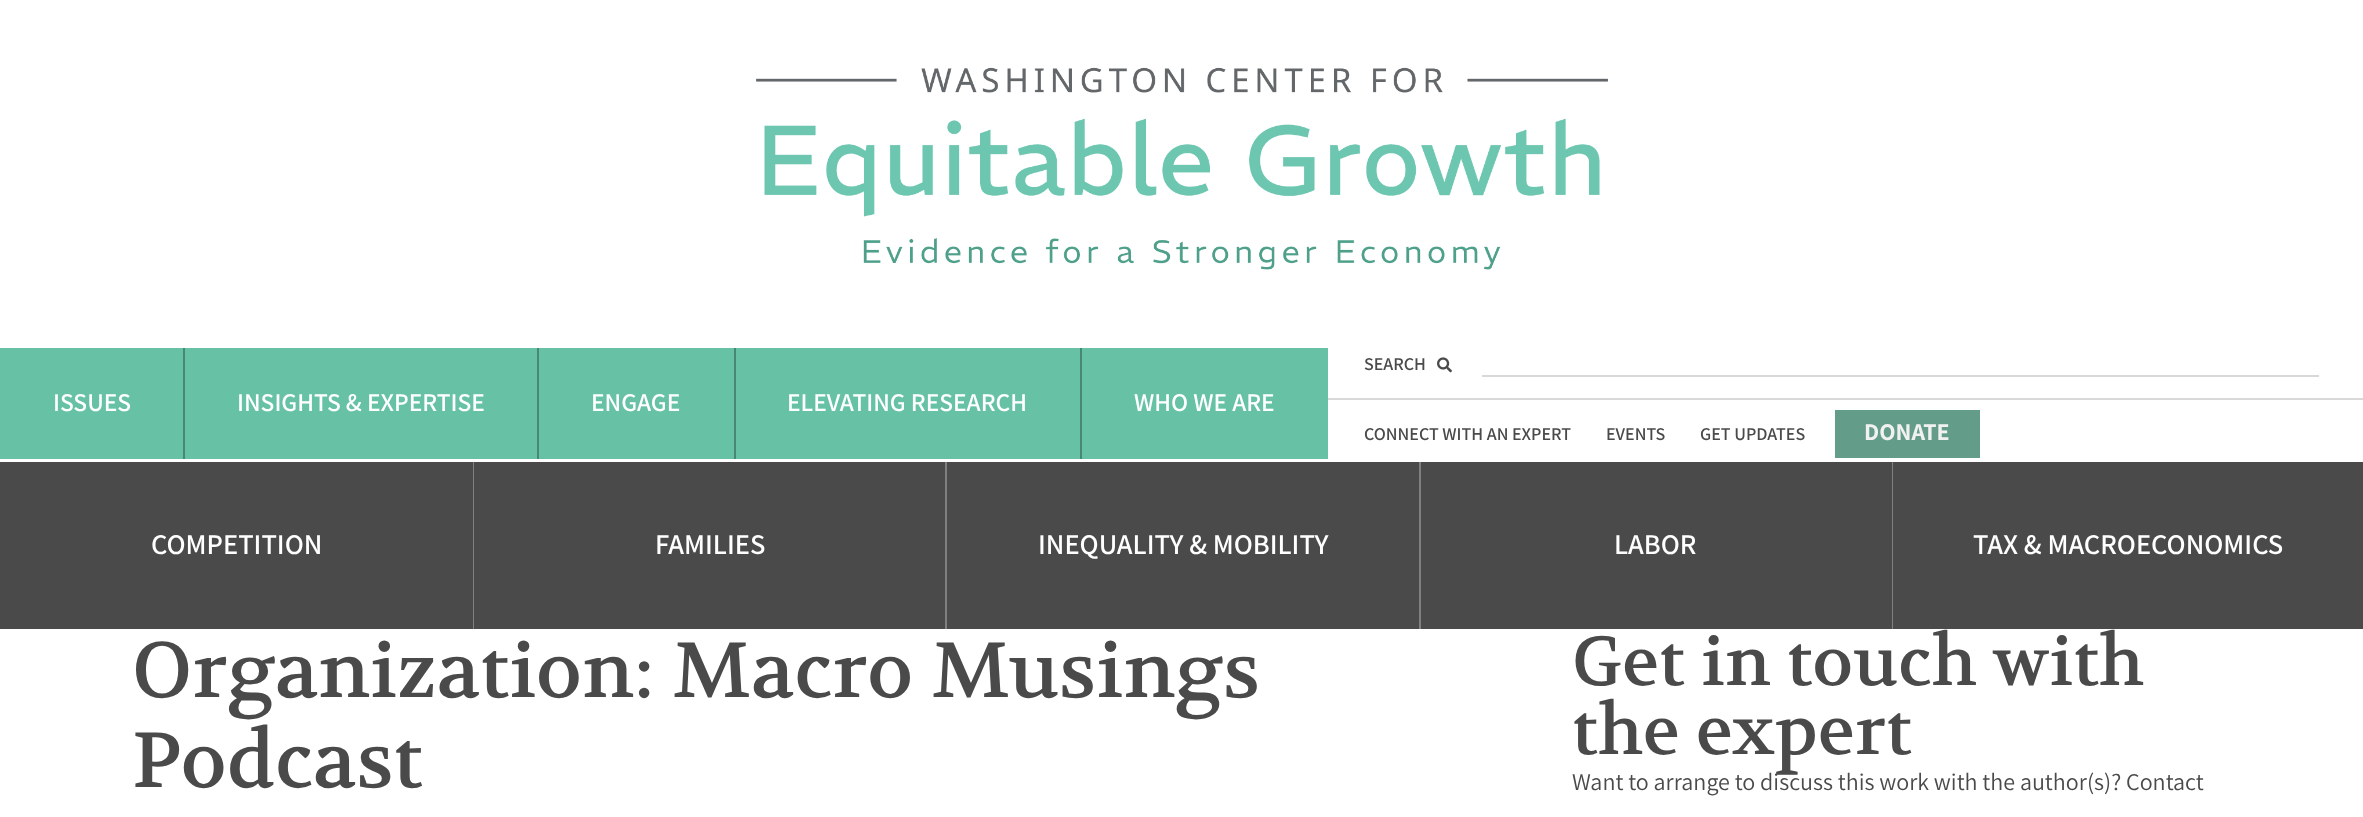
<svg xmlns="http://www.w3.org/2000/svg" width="2363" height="817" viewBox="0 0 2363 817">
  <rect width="100%" height="100%" fill="#ffffff"/>
  <image x="756" y="67" width="852" height="203" href="img1.png"/>
  <rect x="0" y="348" width="183" height="111" fill="#67c2a5"/>
  <text x="53" y="411" font-family="Assistant" font-size="25.5" font-weight="600" fill="#ffffff">ISSUES</text>
  <rect x="185" y="348" width="352" height="111" fill="#67c2a5"/>
  <rect x="183" y="348" width="2" height="111" fill="#488873"/>
  <text x="237" y="411" font-family="Assistant" font-size="25.5" font-weight="600" fill="#ffffff">INSIGHTS &amp; EXPERTISE</text>
  <rect x="539" y="348" width="195" height="111" fill="#67c2a5"/>
  <rect x="537" y="348" width="2" height="111" fill="#488873"/>
  <text x="591" y="411" font-family="Assistant" font-size="25.5" font-weight="600" fill="#ffffff">ENGAGE</text>
  <rect x="736" y="348" width="344" height="111" fill="#67c2a5"/>
  <rect x="734" y="348" width="2" height="111" fill="#488873"/>
  <text x="787" y="411" font-family="Assistant" font-size="25.5" font-weight="600" fill="#ffffff">ELEVATING RESEARCH</text>
  <rect x="1082" y="348" width="246" height="111" fill="#67c2a5"/>
  <rect x="1080" y="348" width="2" height="111" fill="#488873"/>
  <text x="1134" y="411" font-family="Assistant" font-size="25.5" font-weight="600" fill="#ffffff">WHO WE ARE</text>
  <text x="1364" y="370" font-family="Assistant" font-size="18" font-weight="600" fill="#4a4a4a">SEARCH</text>
  <image x="1437" y="357" width="15" height="16" href="img2.png"/>
  <rect x="1482" y="375" width="837" height="2" fill="#d8d8d8"/>
  <rect x="1328" y="398" width="1035" height="2" fill="#d8d8d8"/>
  <text x="1364" y="440" font-family="Assistant" font-size="18" font-weight="600" fill="#4a4a4a">CONNECT WITH AN EXPERT</text>
  <text x="1606" y="440" font-family="Assistant" font-size="18" font-weight="600" fill="#4a4a4a">EVENTS</text>
  <text x="1700" y="440" font-family="Assistant" font-size="18" font-weight="600" fill="#4a4a4a">GET UPDATES</text>
  <rect x="1835" y="410" width="145" height="48" fill="#649c8a"/>
  <text x="1864" y="440" font-family="Assistant" font-size="24" font-weight="bold" fill="#f1f1f1">DONATE</text>
  <rect x="0" y="462" width="1892" height="167" fill="#4a4a4a"/>
  <text x="151" y="554" font-family="Assistant" font-size="28.5" font-weight="600" fill="#ffffff">COMPETITION</text>
  <rect x="473" y="462" width="1" height="167" fill="#808080"/>
  <text x="655" y="554" font-family="Assistant" font-size="28.5" font-weight="600" fill="#ffffff">FAMILIES</text>
  <rect x="945" y="462" width="2" height="167" fill="#808080"/>
  <text x="1038" y="554" font-family="Assistant" font-size="28.5" font-weight="600" fill="#ffffff">INEQUALITY &amp; MOBILITY</text>
  <rect x="1419" y="462" width="2" height="167" fill="#808080"/>
  <text x="1614" y="554" font-family="Assistant" font-size="28.5" font-weight="600" fill="#ffffff">LABOR</text>
  <rect x="1892" y="462" width="1" height="167" fill="#808080"/>
  <rect x="1893" y="462" width="470" height="167" fill="#4a4a4a"/>
  <text x="1973" y="554" font-family="Assistant" font-size="28.5" font-weight="600" fill="#ffffff">TAX &amp; MACROECONOMICS</text>
  <text x="132" y="697" font-family="Volkhov" font-size="78" fill="#4a4a4a">Organization: Macro Musings</text>
  <text x="132" y="787" font-family="Volkhov" font-size="78" fill="#4a4a4a">Podcast</text>
  <text x="1572" y="685" font-family="Volkhov" font-size="69" fill="#4a4a4a">Get in touch with</text>
  <text x="1572" y="754" font-family="Volkhov" font-size="69" fill="#4a4a4a">the expert</text>
  <text x="1572" y="790" font-family="Assistant" font-size="24" fill="#4a4a4a">Want to arrange to discuss this work with the author(s)? Contact</text>
</svg>
